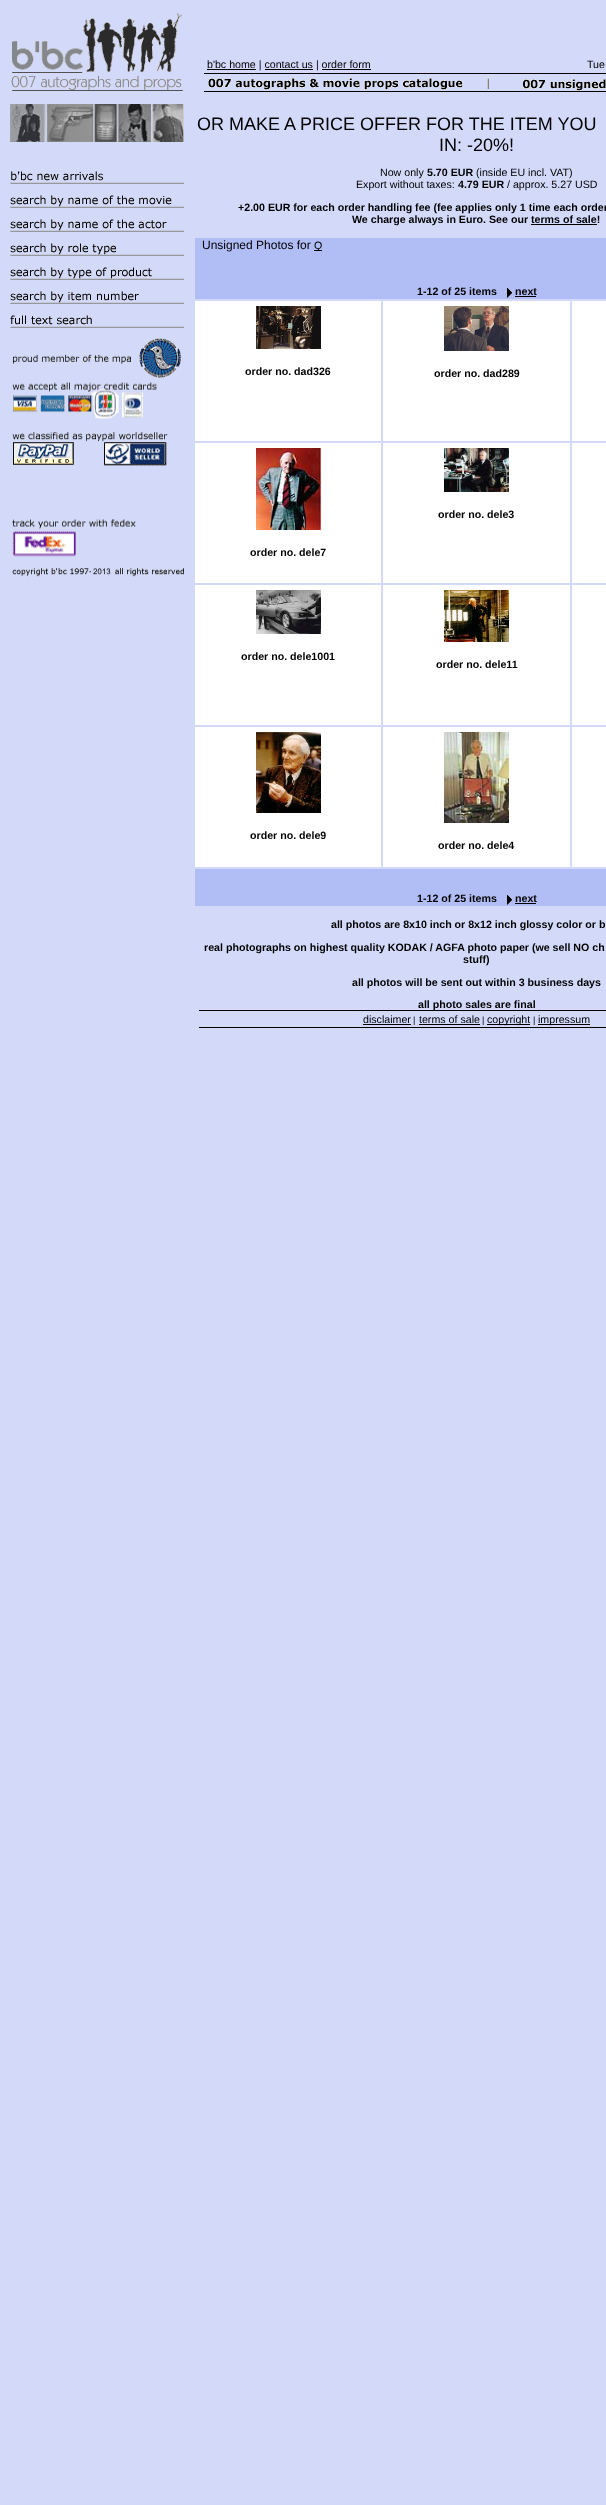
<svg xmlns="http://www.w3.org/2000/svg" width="606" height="2505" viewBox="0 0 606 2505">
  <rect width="100%" height="100%" fill="#d2d9f9"/>
  <image x="11" y="13" width="172" height="78" href="img1.png"/>
  <image x="10" y="104" width="174" height="38" href="img2.png"/>
  <image x="10" y="171" width="174" height="13" href="img3.png"/>
  <image x="10" y="195" width="174" height="13" href="img4.png"/>
  <image x="10" y="219" width="174" height="13" href="img5.png"/>
  <image x="10" y="243" width="174" height="13" href="img6.png"/>
  <image x="10" y="267" width="174" height="13" href="img7.png"/>
  <image x="10" y="291" width="174" height="13" href="img8.png"/>
  <image x="10" y="315" width="174" height="13" href="img9.png"/>
  <image x="12" y="338" width="172" height="239" href="img10.png"/>
  <rect x="207" y="69" width="49" height="1" fill="#000000"/>
  <text x="207" y="68" font-family="Liberation Sans" font-size="10.65" fill="#000000">b'bc home | contact us | order form</text>
  <rect x="265" y="69" width="48" height="1" fill="#000000"/>
  <rect x="322" y="69" width="49" height="1" fill="#000000"/>
  <text x="587" y="68" font-family="Liberation Sans" font-size="10.65" fill="#000000">Tue</text>
  <rect x="204" y="73" width="402" height="1" fill="#000000"/>
  <image x="208" y="78" width="255" height="12" href="img11.png"/>
  <image x="487" y="78" width="2" height="11" href="img12.png"/>
  <image x="523" y="79" width="83" height="12" href="img13.png"/>
  <rect x="204" y="91" width="402" height="1" fill="#000000"/>
  <text x="197" y="130" font-family="Liberation Sans" font-size="18" fill="#000000">OR MAKE A PRICE OFFER FOR THE ITEM YOU</text>
  <text x="439" y="151" font-family="Liberation Sans" font-size="18" fill="#000000">IN: -20%!</text>
  <text x="380" y="176" font-family="Liberation Sans" font-size="10.65" fill="#000000">Now only</text>
  <text x="427" y="176" font-family="Liberation Sans" font-size="10.65" font-weight="bold" fill="#000000">5.70 EUR</text>
  <text x="476" y="176" font-family="Liberation Sans" font-size="10.65" fill="#000000">(inside EU incl. VAT)</text>
  <text x="356" y="188" font-family="Liberation Sans" font-size="10.65" fill="#000000">Export without taxes:</text>
  <text x="458" y="188" font-family="Liberation Sans" font-size="10.65" font-weight="bold" fill="#000000">4.79 EUR</text>
  <text x="507" y="188" font-family="Liberation Sans" font-size="10.65" fill="#000000">/ approx. 5.27 USD</text>
  <text x="238" y="211" font-family="Liberation Sans" font-size="10.65" font-weight="bold" fill="#000000">+2.00 EUR for each order handling fee (fee applies only 1 time each order</text>
  <text x="352" y="223" font-family="Liberation Sans" font-size="10.65" font-weight="bold" fill="#000000">We charge always in Euro. See our terms of sale!</text>
  <rect x="531" y="224" width="66" height="1" fill="#000000"/>
  <rect x="195" y="238" width="411" height="61" fill="#b1bdf5"/>
  <text x="202" y="249" font-family="Liberation Sans" font-size="12" fill="#000000">Unsigned Photos for</text>
  <rect x="314" y="250" width="8" height="1" fill="#000000"/>
  <text x="314" y="249" font-family="Liberation Sans" font-size="10.65" fill="#000000">Q</text>
  <text x="417" y="295" font-family="Liberation Sans" font-size="10.65" font-weight="bold" fill="#000000">1-12 of 25 items</text>
  <image x="507" y="287" width="6" height="11" href="img14.png"/>
  <text x="515" y="295" font-family="Liberation Sans" font-size="10.65" font-weight="bold" fill="#000000">next</text>
  <rect x="515" y="296" width="21" height="1" fill="#000000"/>
  <rect x="195" y="301" width="186" height="140" fill="#ffffff"/>
  <image x="256" y="306" width="65" height="43" href="img15.png"/>
  <text x="245" y="375" font-family="Liberation Sans" font-size="10.65" font-weight="bold" fill="#000000">order no. dad326</text>
  <rect x="383" y="301" width="187" height="140" fill="#ffffff"/>
  <image x="444" y="306" width="65" height="45" href="img16.png"/>
  <text x="434" y="377" font-family="Liberation Sans" font-size="10.65" font-weight="bold" fill="#000000">order no. dad289</text>
  <rect x="572" y="301" width="34" height="140" fill="#ffffff"/>
  <rect x="383" y="443" width="187" height="140" fill="#ffffff"/>
  <image x="444" y="448" width="65" height="44" href="img17.png"/>
  <text x="438" y="518" font-family="Liberation Sans" font-size="10.65" font-weight="bold" fill="#000000">order no. dele3</text>
  <rect x="572" y="443" width="34" height="140" fill="#ffffff"/>
  <rect x="195" y="443" width="186" height="140" fill="#ffffff"/>
  <image x="256" y="448" width="65" height="82" href="img18.png"/>
  <text x="250" y="556" font-family="Liberation Sans" font-size="10.65" font-weight="bold" fill="#000000">order no. dele7</text>
  <rect x="195" y="585" width="186" height="140" fill="#ffffff"/>
  <image x="256" y="590" width="65" height="44" href="img19.png"/>
  <text x="241" y="660" font-family="Liberation Sans" font-size="10.65" font-weight="bold" fill="#000000">order no. dele1001</text>
  <rect x="572" y="585" width="34" height="140" fill="#ffffff"/>
  <rect x="383" y="585" width="187" height="140" fill="#ffffff"/>
  <image x="444" y="590" width="65" height="52" href="img20.png"/>
  <text x="436" y="668" font-family="Liberation Sans" font-size="10.65" font-weight="bold" fill="#000000">order no. dele11</text>
  <rect x="195" y="727" width="186" height="140" fill="#ffffff"/>
  <image x="256" y="732" width="65" height="81" href="img21.png"/>
  <text x="250" y="839" font-family="Liberation Sans" font-size="10.65" font-weight="bold" fill="#000000">order no. dele9</text>
  <rect x="572" y="727" width="34" height="140" fill="#ffffff"/>
  <rect x="383" y="727" width="187" height="140" fill="#ffffff"/>
  <image x="444" y="732" width="65" height="91" href="img22.png"/>
  <text x="438" y="849" font-family="Liberation Sans" font-size="10.65" font-weight="bold" fill="#000000">order no. dele4</text>
  <rect x="195" y="869" width="411" height="37" fill="#b1bdf5"/>
  <text x="417" y="902" font-family="Liberation Sans" font-size="10.65" font-weight="bold" fill="#000000">1-12 of 25 items</text>
  <image x="507" y="894" width="6" height="11" href="img14.png"/>
  <text x="515" y="902" font-family="Liberation Sans" font-size="10.65" font-weight="bold" fill="#000000">next</text>
  <rect x="515" y="903" width="21" height="1" fill="#000000"/>
  <text x="331" y="928" font-family="Liberation Sans" font-size="10.65" font-weight="bold" fill="#000000">all photos are 8x10 inch or 8x12 inch glossy color or b</text>
  <text x="204" y="951" font-family="Liberation Sans" font-size="10.65" font-weight="bold" fill="#000000">real photographs on highest quality KODAK / AGFA photo paper (we sell NO ch</text>
  <text x="463" y="963" font-family="Liberation Sans" font-size="10.65" font-weight="bold" fill="#000000">stuff)</text>
  <text x="352" y="986" font-family="Liberation Sans" font-size="10.65" font-weight="bold" fill="#000000">all photos will be sent out within 3 business days</text>
  <text x="418" y="1008" font-family="Liberation Sans" font-size="10.65" font-weight="bold" fill="#000000">all photo sales are final</text>
  <rect x="199" y="1010" width="407" height="1" fill="#000000"/>
  <text x="363" y="1023" font-family="Liberation Sans" font-size="10.65" fill="#000000">disclaimer</text>
  <rect x="363" y="1024" width="48" height="1" fill="#000000"/>
  <text x="413" y="1023" font-family="Liberation Sans" font-size="9" fill="#000000">|</text>
  <text x="419" y="1023" font-family="Liberation Sans" font-size="10.65" fill="#000000">terms of sale</text>
  <rect x="419" y="1024" width="61" height="1" fill="#000000"/>
  <text x="482" y="1023" font-family="Liberation Sans" font-size="9" fill="#000000">|</text>
  <rect x="487" y="1024" width="43" height="1" fill="#000000"/>
  <text x="487" y="1023" font-family="Liberation Sans" font-size="10.65" fill="#000000">copyright</text>
  <text x="533" y="1023" font-family="Liberation Sans" font-size="9" fill="#000000">|</text>
  <rect x="538" y="1024" width="52" height="1" fill="#000000"/>
  <text x="538" y="1023" font-family="Liberation Sans" font-size="10.65" fill="#000000">impressum</text>
  <rect x="199" y="1027" width="407" height="1" fill="#000000"/>
</svg>
